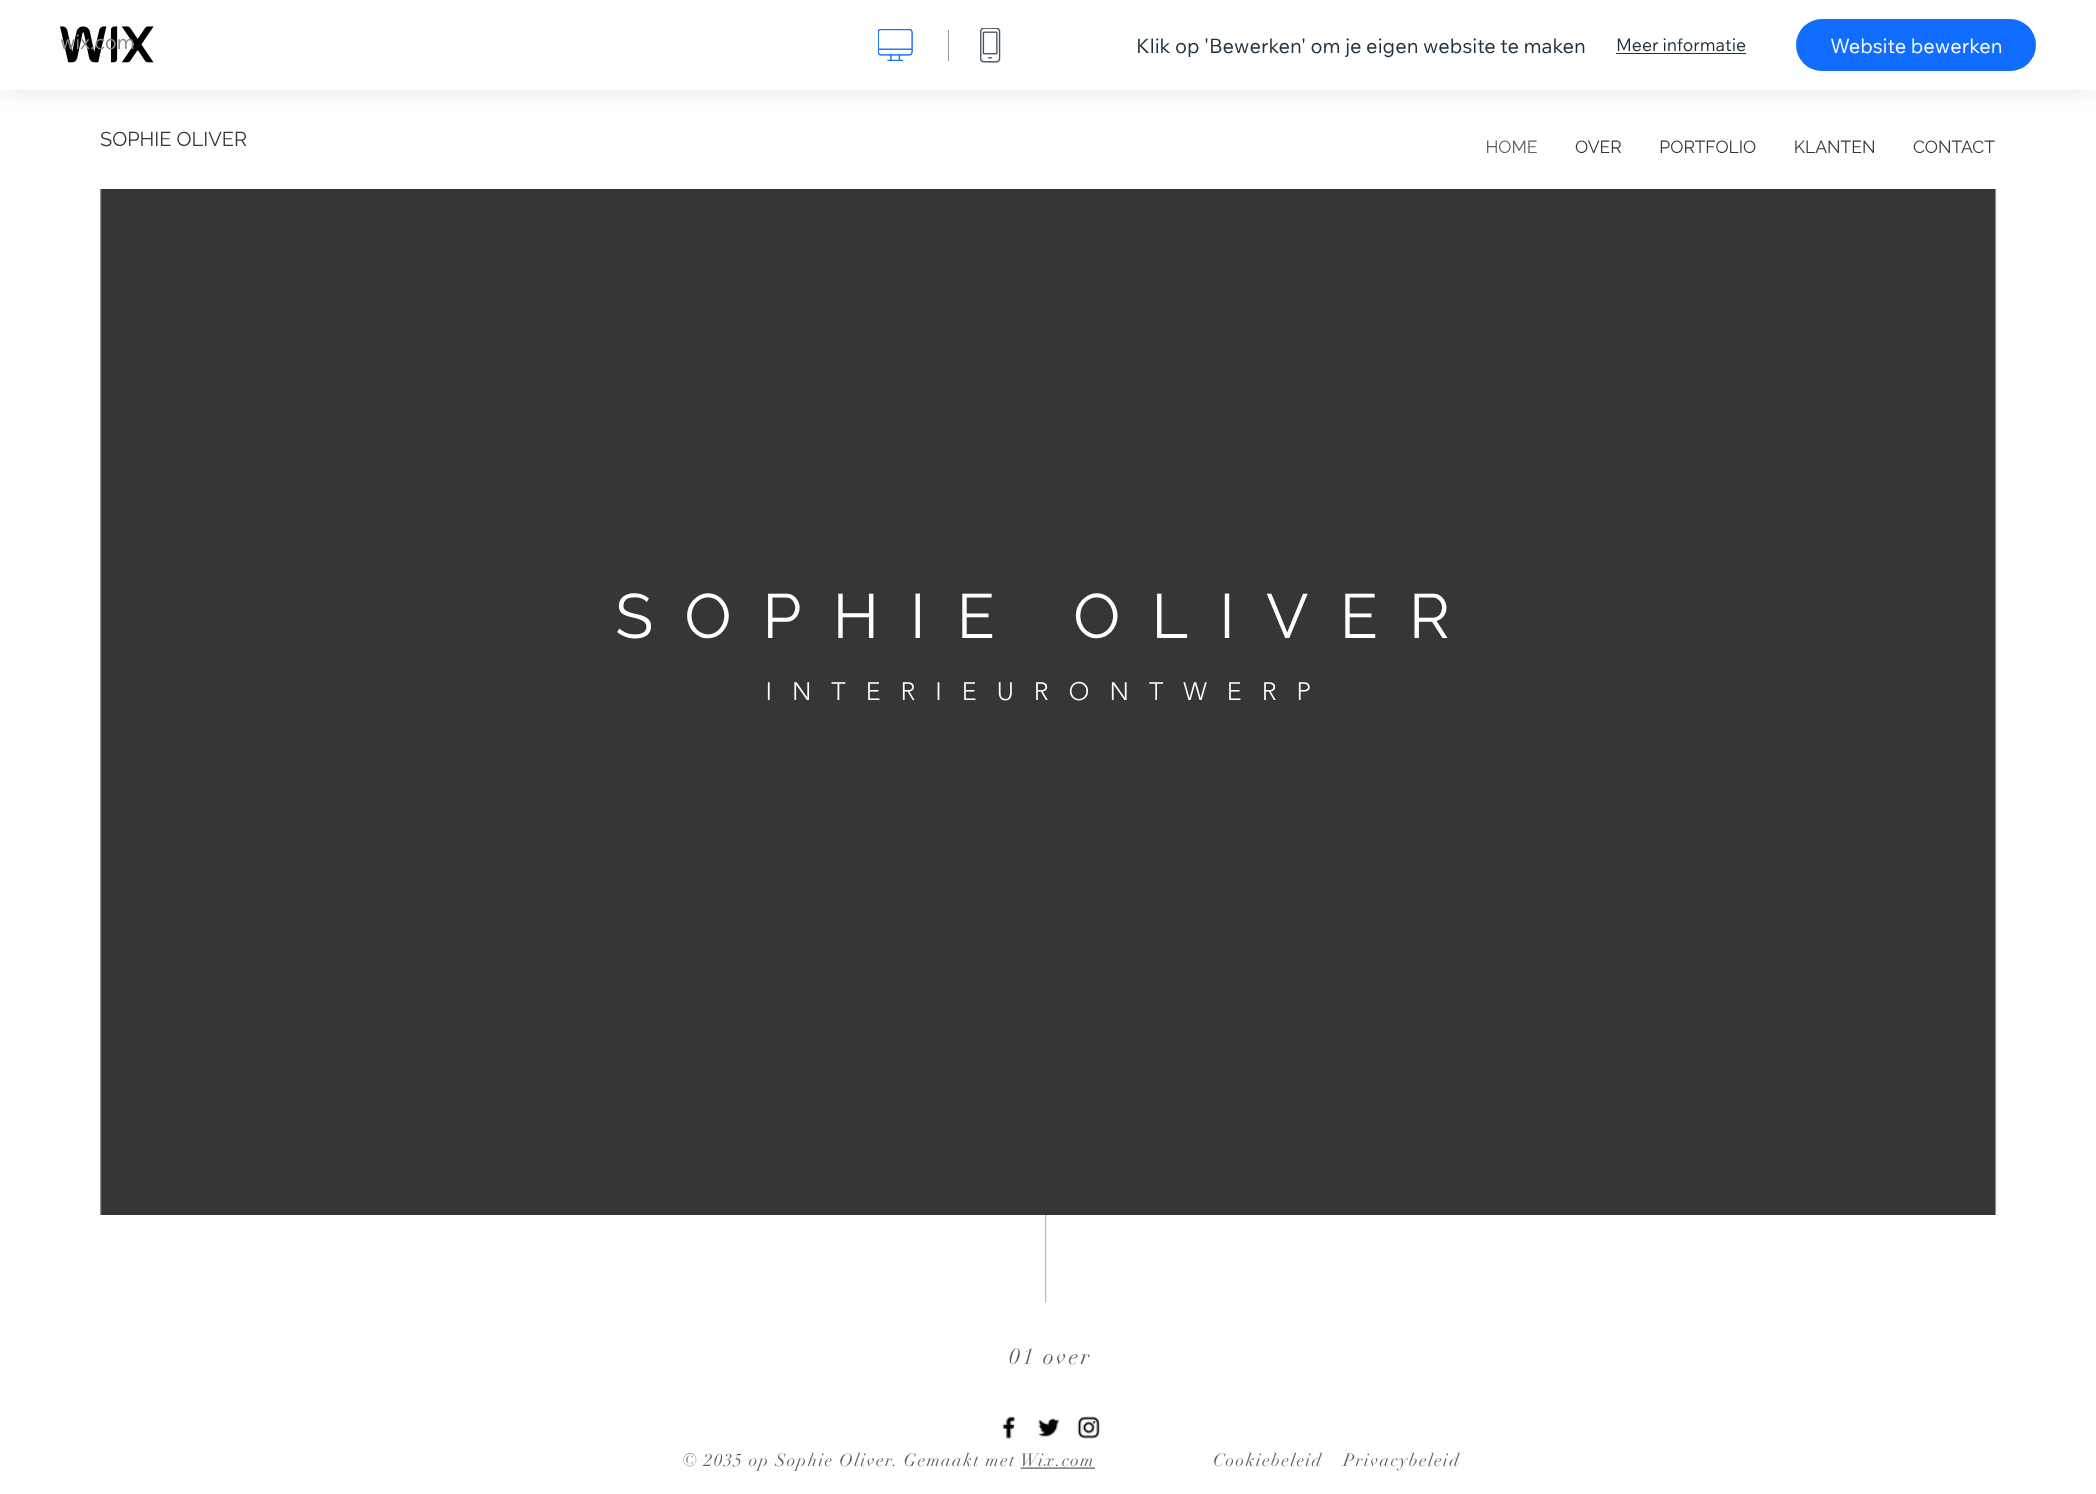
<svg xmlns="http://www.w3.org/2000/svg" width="2096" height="1494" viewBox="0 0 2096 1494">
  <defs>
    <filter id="blur1" x="-50%" y="-200%" width="200%" height="500%"><feGaussianBlur stdDeviation="11"/></filter>
  </defs>
  <rect width="100%" height="100%" fill="#ffffff"/>
  <image x="0" y="90" width="2096" height="1404" href="img4.png"/>
  <rect x="0" y="3" width="2096" height="90" fill="#81a2b6" fill-opacity="0.2" filter="url(#blur1)"/>
  <rect x="0" y="0" width="2096" height="90" fill="#ffffff"/>
  <image x="60" y="26" width="94" height="37" href="img1.png"/>
  <text x="60" y="49" font-family="Wix Madefor Text" font-size="20" fill="#878787">wix.com</text>
  <image x="878" y="29" width="35" height="32" href="img2.png"/>
  <rect x="948" y="30" width="1" height="31" fill="#90989e"/>
  <image x="980" y="28" width="21" height="35" href="img3.png"/>
  <text x="1136" y="53" font-family="Wix Madefor Text" font-size="20" fill="#20303c">Klik op 'Bewerken' om je eigen website te maken</text>
  <text x="1616" y="51" font-family="Wix Madefor Text" font-size="17.5" fill="#20303c">Meer informatie</text>
  <rect x="1616" y="53" width="130" height="1" fill="#20303c"/>
  <rect x="1796" y="19" width="240" height="52" rx="26" fill="#116dff"/>
  <text x="1830" y="53" font-family="Wix Madefor Text" font-size="20" fill="#ffffff">Website bewerken</text>
</svg>
